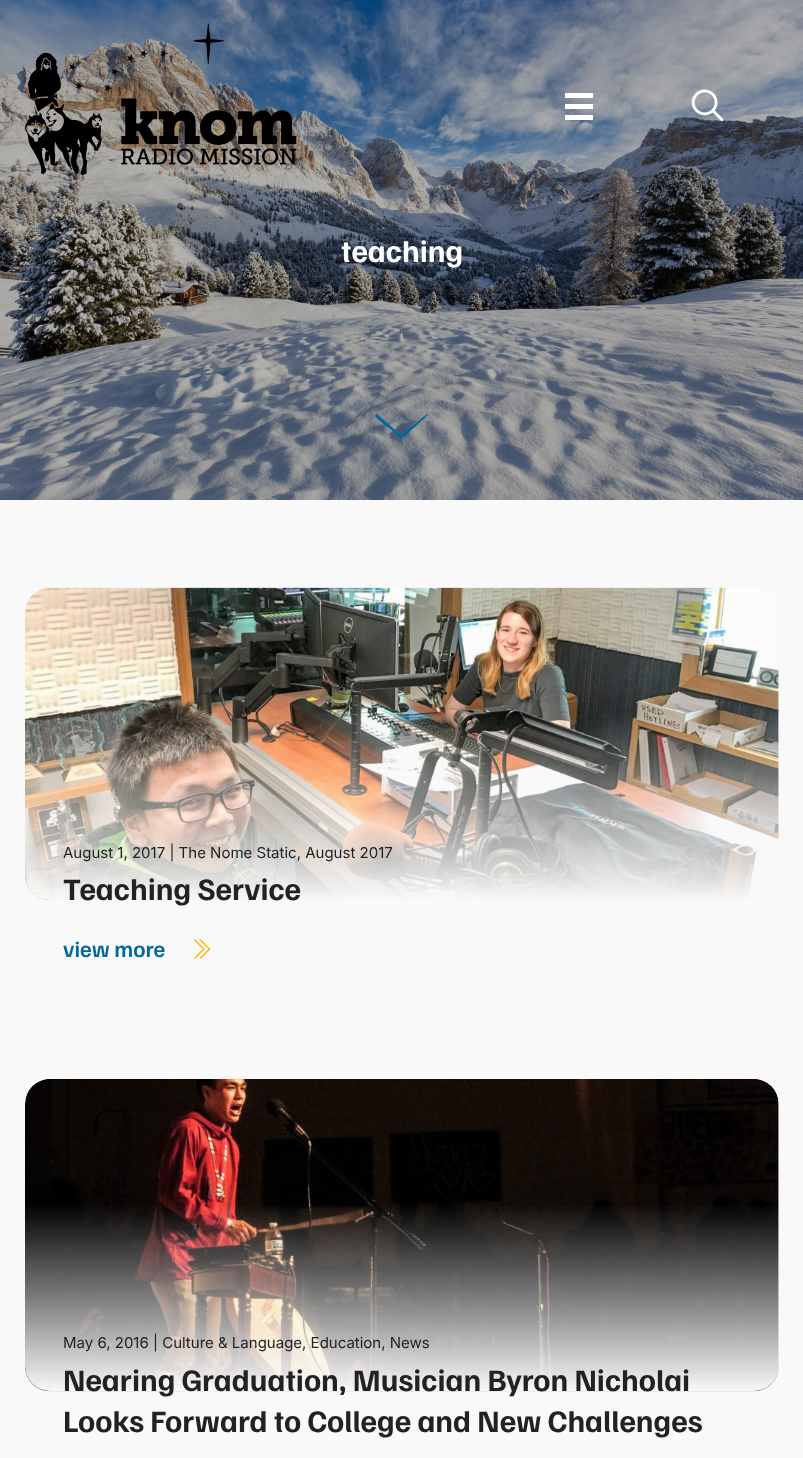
<svg xmlns="http://www.w3.org/2000/svg" width="803" height="1458" viewBox="0 0 803 1458">
  <defs>
    <linearGradient id="g1" gradientUnits="userSpaceOnUse" x1="402" y1="587" x2="402" y2="900"><stop offset="0.4" stop-color="#f8f8f8" stop-opacity="0"/><stop offset="1" stop-color="#f8f8f8"/></linearGradient>
    <linearGradient id="g2" gradientUnits="userSpaceOnUse" x1="402" y1="1079" x2="402" y2="1391"><stop offset="0.4" stop-color="#f8f8f8" stop-opacity="0"/><stop offset="1" stop-color="#f8f8f8"/></linearGradient>
  </defs>
  <rect width="100%" height="100%" fill="#ffffff"/>
  <image x="0" y="0" width="803" height="500" href="img3.png"/>
  <image x="25" y="23" width="272" height="153" href="img1.png"/>
  <rect x="565" y="93" width="28" height="5" fill="#ffffff"/>
  <rect x="565" y="104" width="28" height="5" fill="#ffffff"/>
  <rect x="565" y="115" width="28" height="5" fill="#ffffff"/>
  <image x="691" y="89" width="33" height="32" href="img2.png"/>
  <text x="341" y="262" font-family="Familjen Grotesk" font-size="31.25" font-weight="bold" fill="#ffffff">teaching</text>
  <path d="M375 416C375 415 376 414 377 414L401 435L426 415C427 414 429 415 427 416L407 434C400 440 402 440 396 434L388 427C386 426 375 417 375 416Z" fill="#02679a"/>
  <rect x="0" y="500" width="803" height="958" fill="#f9f9f9"/>
  <image x="25" y="587" width="754" height="313" href="img4.png"/>
  <rect x="25" y="588" width="754" height="312" rx="25" fill="url(#g1)"/>
  <text x="63" y="858" font-family="Inter" font-size="15" fill="#222222">August 1, 2017 | The Nome Static, August 2017</text>
  <text x="63" y="900" font-family="Familjen Grotesk" font-size="31.25" font-weight="bold" fill="#222222">Teaching Service</text>
  <text x="63" y="957" font-family="Familjen Grotesk" font-size="22.5" font-weight="600" fill="#02679a">view more</text>
  <image x="194" y="939" width="17" height="20" href="img5.png"/>
  <image x="25" y="1079" width="754" height="313" href="img6.png"/>
  <rect x="25" y="1079" width="754" height="312" rx="25" fill="url(#g2)"/>
  <text x="63" y="1348" font-family="Inter" font-size="15" fill="#222222">May 6, 2016 | Culture &amp; Language, Education, News</text>
  <text x="63" y="1391" font-family="Familjen Grotesk" font-size="31.25" font-weight="bold" fill="#222222">Nearing Graduation, Musician Byron Nicholai</text>
  <text x="63" y="1432" font-family="Familjen Grotesk" font-size="31.25" font-weight="bold" fill="#222222">Looks Forward to College and New Challenges</text>
</svg>
